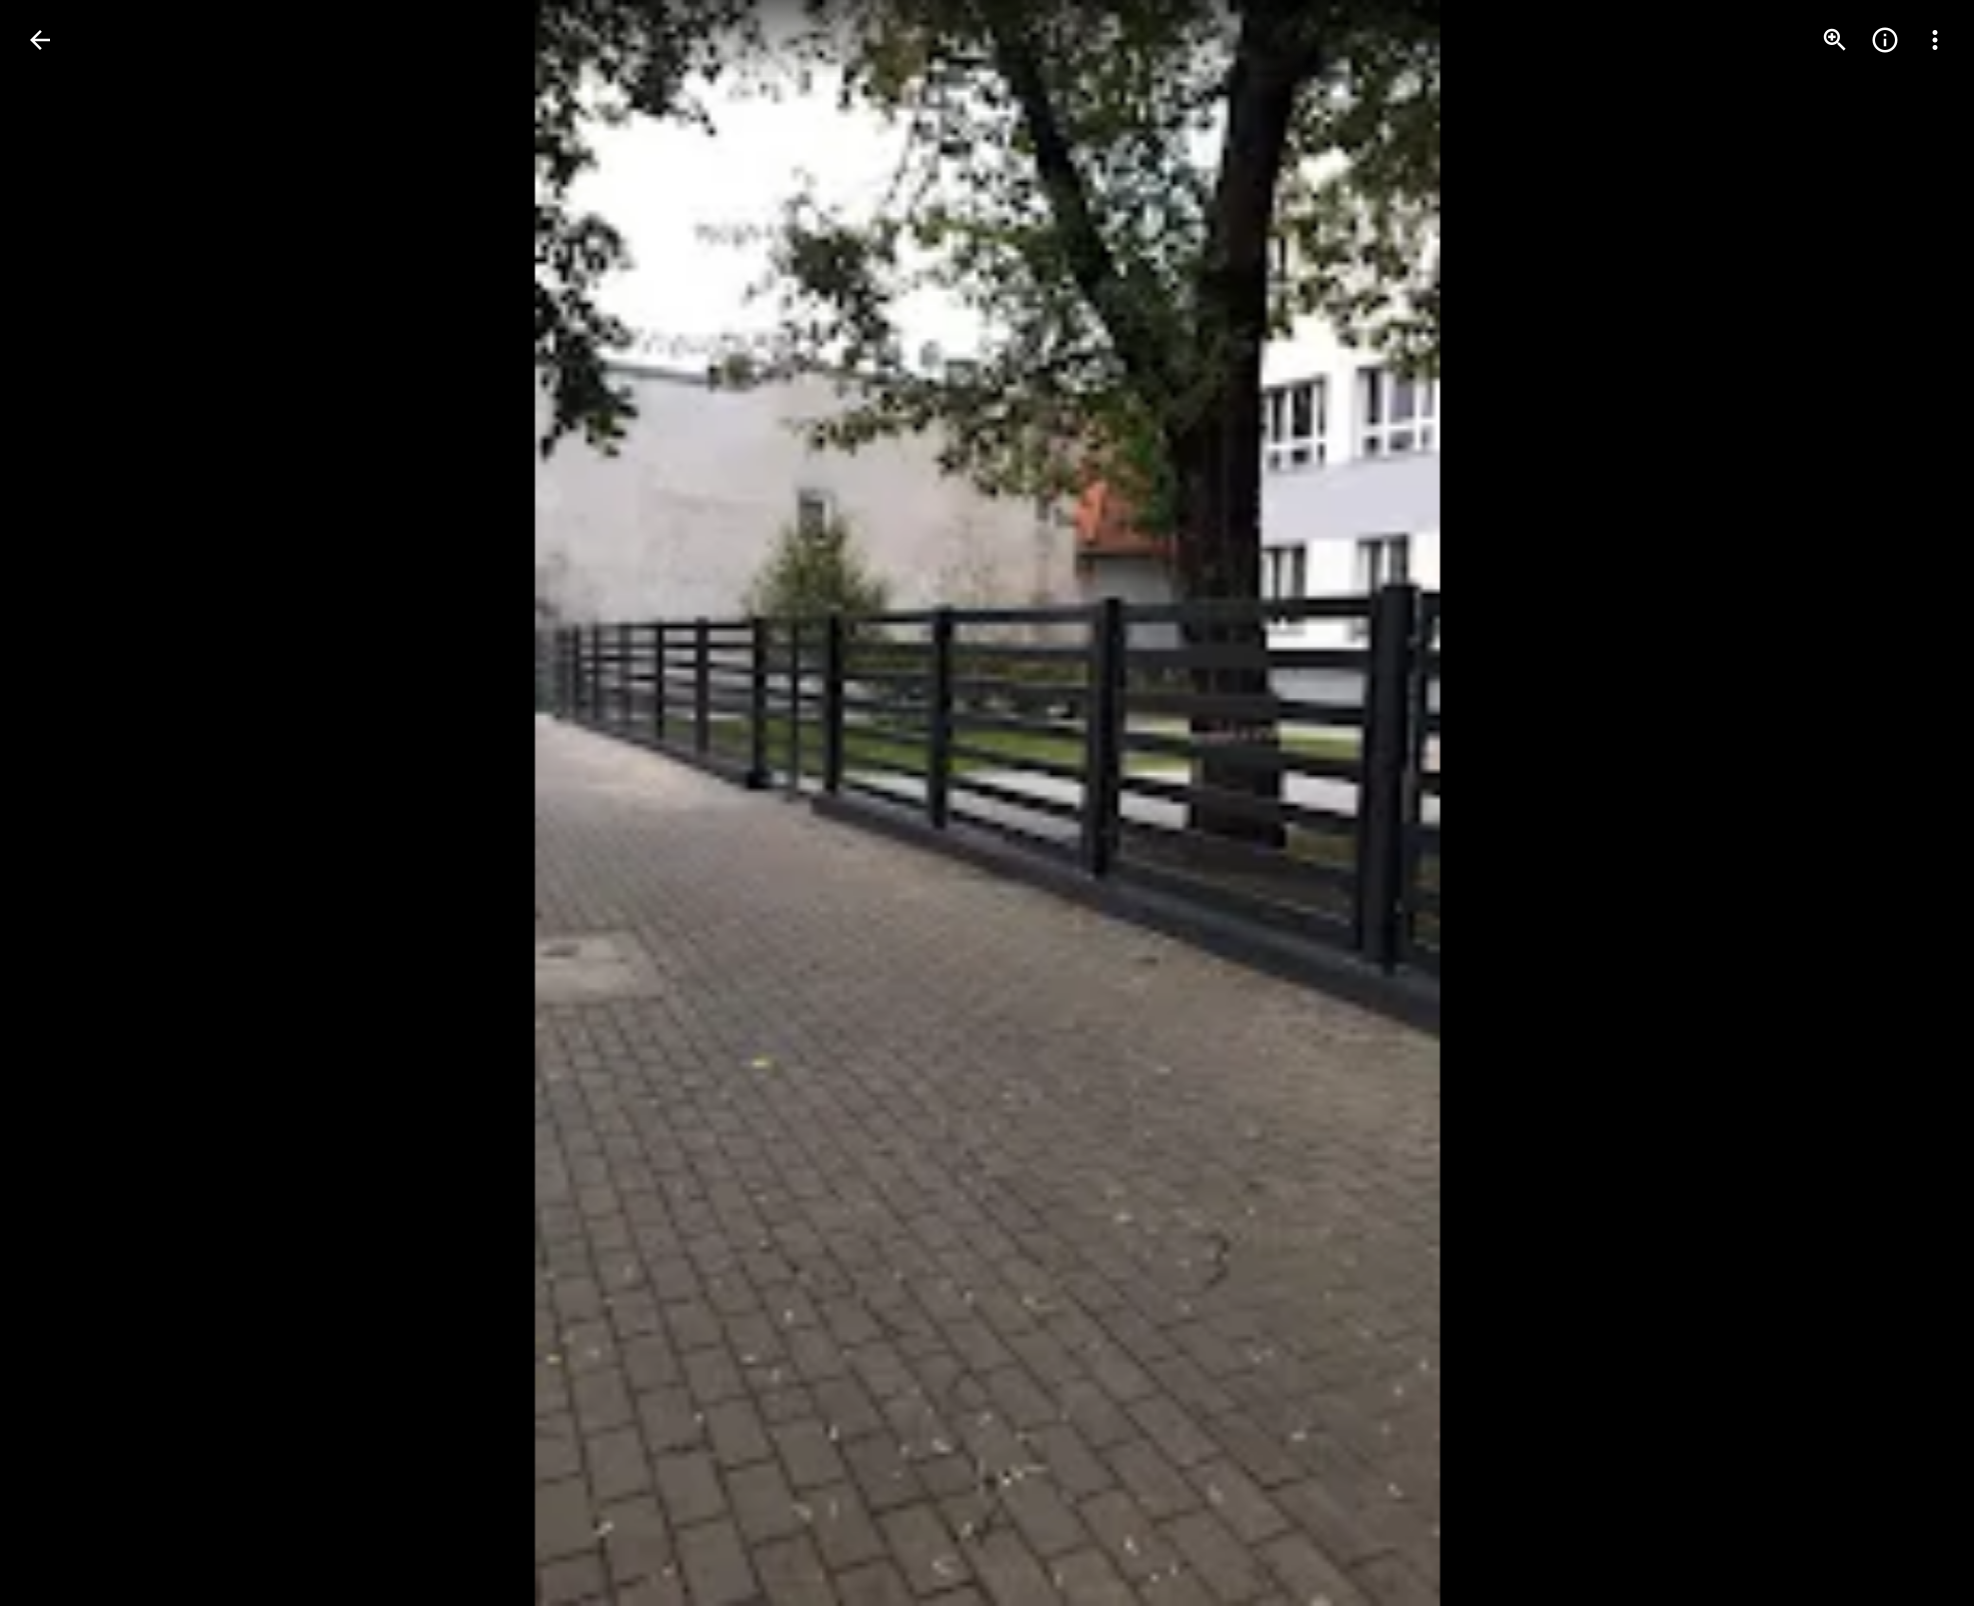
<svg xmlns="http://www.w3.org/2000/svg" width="1974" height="1606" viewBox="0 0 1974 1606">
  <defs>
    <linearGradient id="g1" gradientUnits="userSpaceOnUse" x1="988" y1="0" x2="988" y2="80"><stop offset="0" stop-color="#000000" stop-opacity="0.6"/><stop offset="1" stop-color="#000000" stop-opacity="0"/></linearGradient>
  </defs>
  <rect width="100%" height="100%" fill="#000000"/>
  <image x="534" y="0" width="907" height="1606" href="img5.png"/>
  <rect x="534" y="0" width="907" height="77" fill="url(#g1)"/>
  <image x="30" y="30" width="20" height="20" href="img1.png"/>
  <image x="1823" y="28" width="23" height="23" href="img2.png"/>
  <image x="1872" y="27" width="26" height="26" href="img3.png"/>
  <image x="1932" y="30" width="6" height="20" href="img4.png"/>
</svg>
